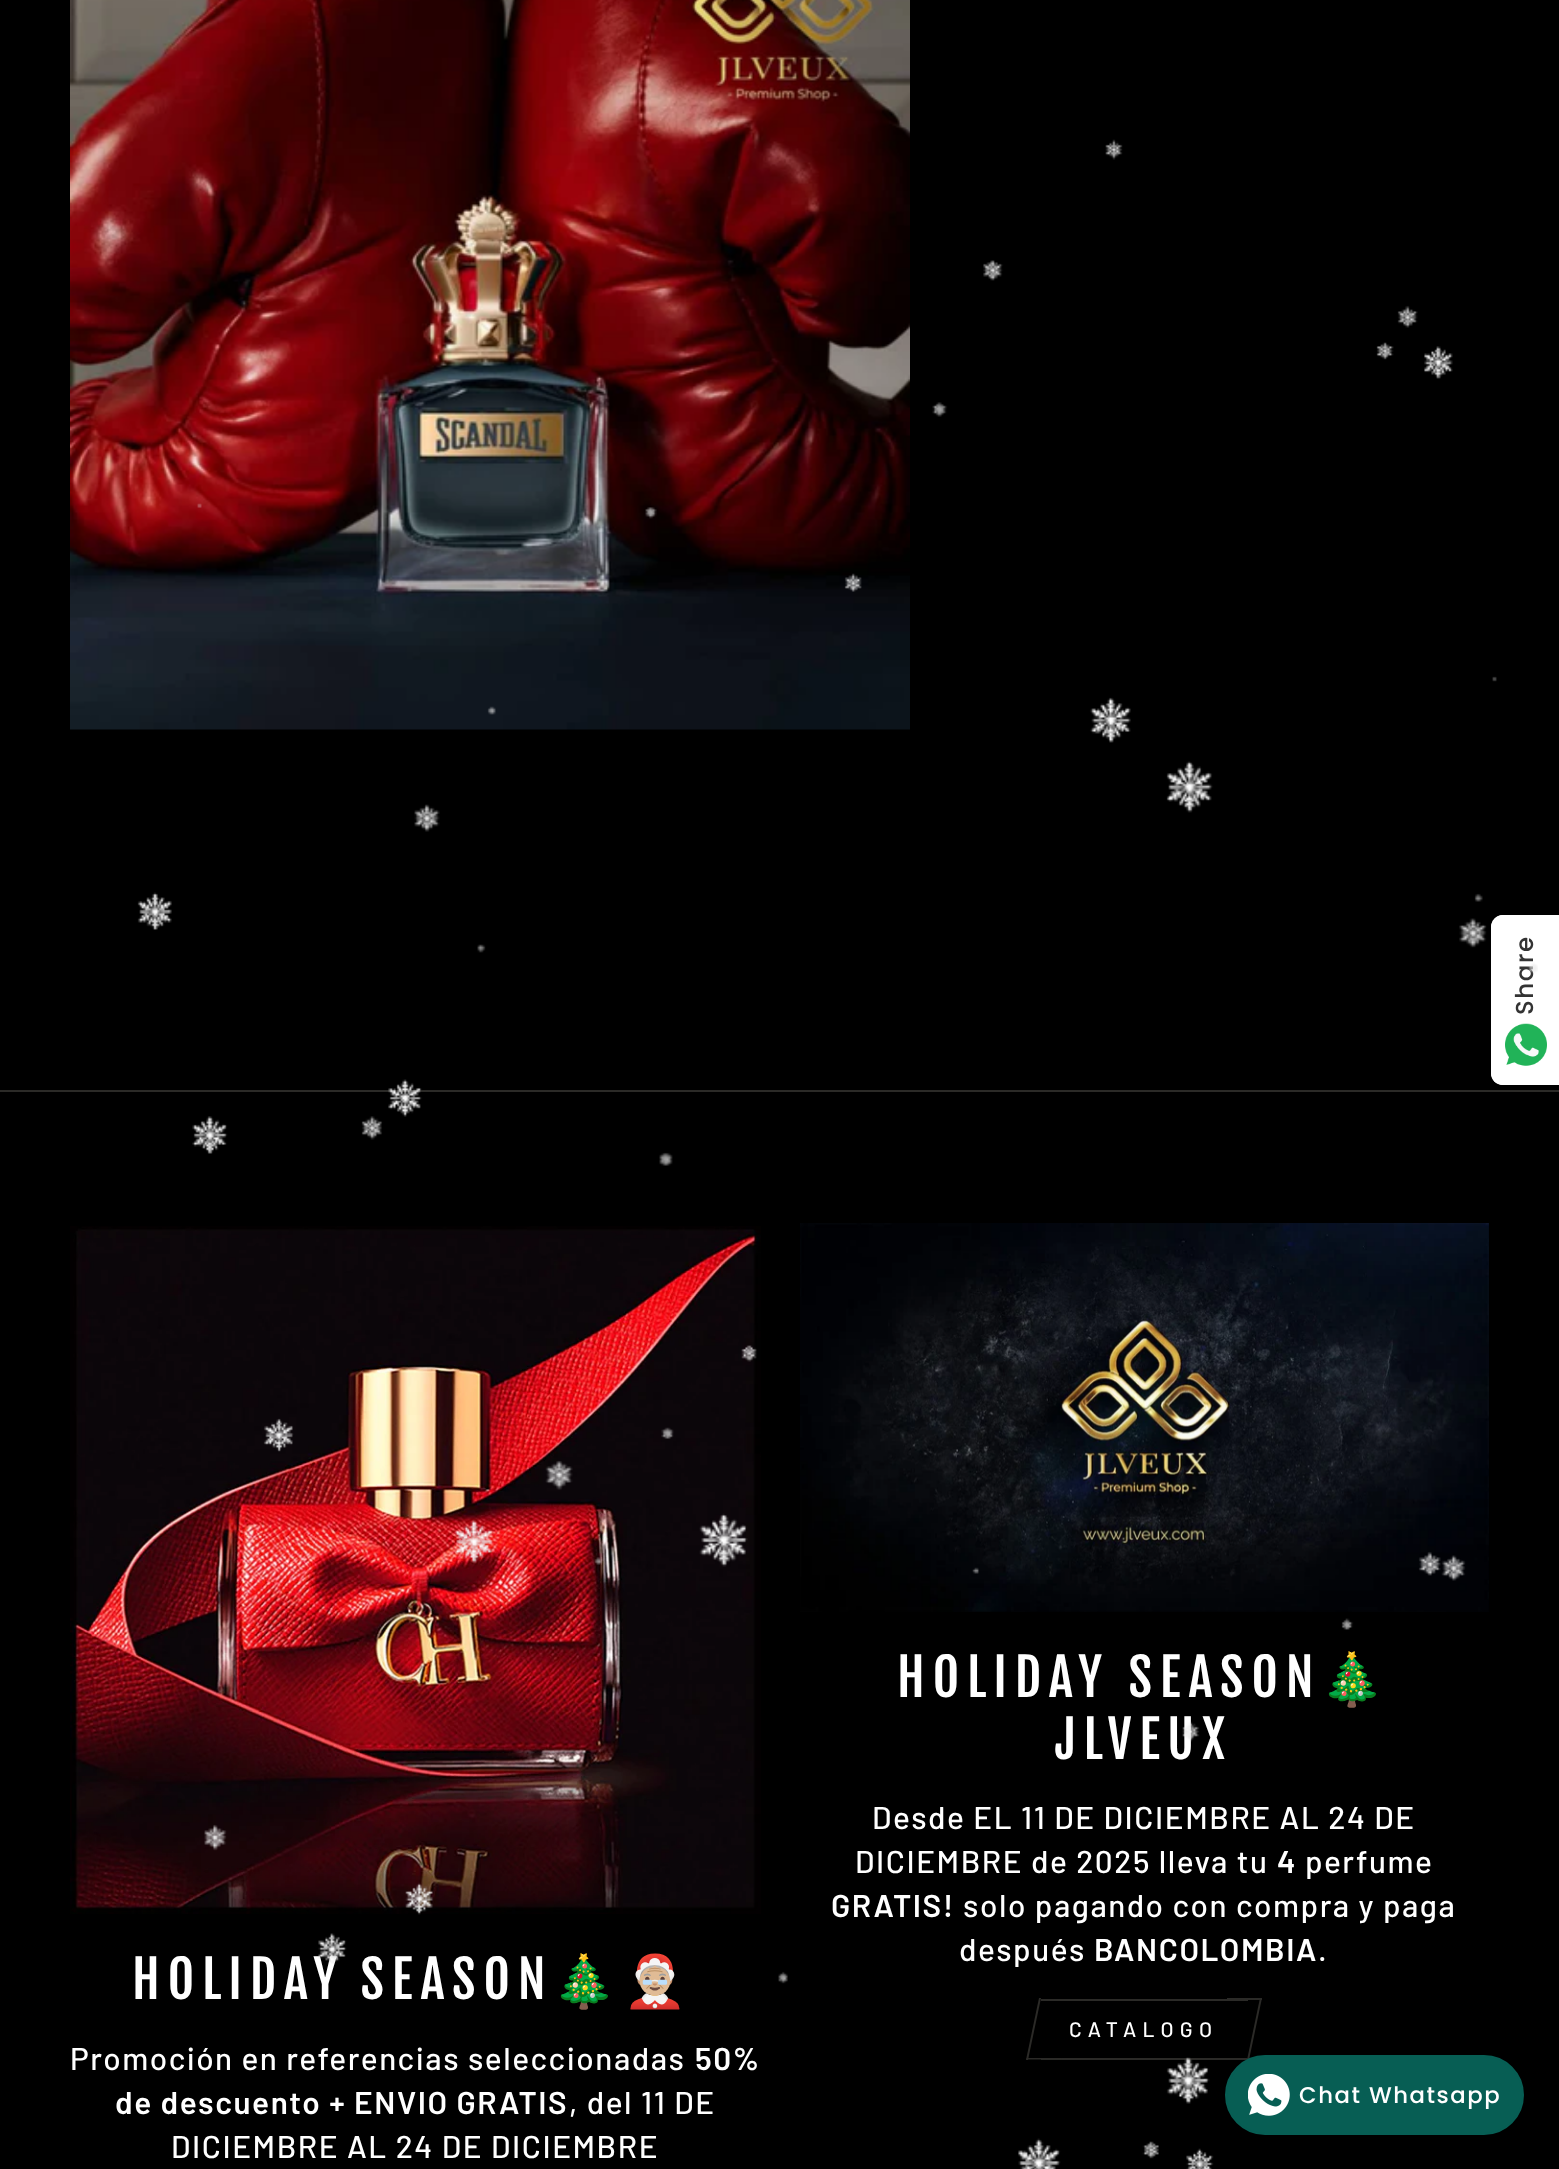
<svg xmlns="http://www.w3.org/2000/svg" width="1559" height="2169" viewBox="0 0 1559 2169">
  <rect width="100%" height="100%" fill="#000000"/>
  <path d="M1503 915H1559V1085H1503C1496.5 1085 1491 1079.5 1491 1073V927C1491 920.5 1496.5 915 1503 915Z" fill="#ffffff"/>
  <path d="M1503 915H1559V1085H1503C1496 1085 1491 1080 1491 1073V928C1491 921 1496 915 1503 915ZM1503 917H1559V1083H1503C1497 1083 1493 1079 1493 1073V928C1493 922 1497 917 1503 917Z" fill="#ffffff" fill-rule="evenodd"/>
  <text x="1533" y="1015" transform="rotate(-90 1533 1015)" font-family="Poppins" font-size="24.5" font-weight="500" letter-spacing="1.55" fill="#333333">Share</text>
  <image x="1505" y="1023" width="42" height="43" href="img2.png"/>
  <rect x="1041" y="2058" width="207" height="2" fill="#2b2a27"/>
  <rect x="1041" y="1999" width="207" height="2" fill="#2b2a27"/>
  <rect x="1227" y="1998" width="35" height="2" fill="#2b2a27"/>
  <path d="M1260 1998H1262L1249 2060H1247Z" fill="#2b2a27"/>
  <rect x="1226" y="2056" width="297" height="78" rx="39" fill="#075e54" stroke="#075e54" stroke-width="2"/>
  <image x="1248" y="2074" width="42" height="42" href="img3.png"/>
  <text x="1299" y="2103" font-family="Poppins" font-size="22.75" font-weight="500" letter-spacing="1.55" fill="#ffffff">Chat Whatsapp</text>
  <image x="70" y="0" width="840" height="730" href="img4.png"/>
  <rect x="0" y="1090" width="1559" height="2" fill="#2b2a27"/>
  <image x="70" y="1226" width="691" height="688" href="img5.png"/>
  <text x="132" y="1999" word-spacing="-3" font-family="Fjalla One" font-size="51.25" letter-spacing="7.75" fill="#ffffff">HOLIDAY SEASON</text>
  <text x="552" y="1999" font-family="Noto Color Emoji" font-size="51.25" letter-spacing="7.75" fill="#ffffff">🎄🤶🏼</text>
  <text x="70" y="2070" font-family="Barlow" font-size="31.5" font-weight="500" letter-spacing="1.55" fill="#ffffff">Promoción en referencias seleccionadas</text>
  <text x="695" y="2070" font-family="Barlow" font-size="31.5" font-weight="600" letter-spacing="1.55" fill="#ffffff">50%</text>
  <text x="115" y="2114" font-family="Barlow" font-size="31.5" font-weight="600" letter-spacing="1.55" fill="#ffffff">de descuento + ENVIO GRATIS</text>
  <text x="569" y="2114" font-family="Barlow" font-size="31.5" font-weight="500" letter-spacing="1.55" fill="#ffffff">, del 11 DE</text>
  <text x="171" y="2158" font-family="Barlow" font-size="31.5" font-weight="500" letter-spacing="1.55" fill="#ffffff">DICIEMBRE AL 24 DE DICIEMBRE</text>
  <image x="800" y="1223" width="689" height="389" href="img6.png"/>
  <text x="897" y="1697" font-family="Fjalla One" font-size="51.25" letter-spacing="7.75" fill="#ffffff">HOLIDAY SEASON</text>
  <text x="1320" y="1697" font-family="Noto Color Emoji" font-size="51.25" letter-spacing="7.75" fill="#ffffff">🎄</text>
  <text x="1055" y="1759" font-family="Fjalla One" font-size="51.25" letter-spacing="7.75" fill="#ffffff">JLVEUX</text>
  <text x="872" y="1829" font-family="Barlow" font-size="31.5" font-weight="500" letter-spacing="1.55" fill="#ffffff">Desde EL 11 DE DICIEMBRE AL 24 DE</text>
  <text x="855" y="1873" font-family="Barlow" font-size="31.5" font-weight="500" letter-spacing="1.55" fill="#ffffff">DICIEMBRE de 2025 lleva tu</text>
  <text x="1277" y="1873" font-family="Barlow" font-size="31.5" font-weight="600" letter-spacing="1.55" fill="#ffffff">4</text>
  <text x="1305" y="1873" font-family="Barlow" font-size="31.5" font-weight="500" letter-spacing="1.55" fill="#ffffff">perfume</text>
  <text x="831" y="1917" font-family="Barlow" font-size="31.5" font-weight="600" letter-spacing="1.55" fill="#ffffff">GRATIS!</text>
  <text x="963" y="1917" font-family="Barlow" font-size="31.5" font-weight="500" letter-spacing="1.55" fill="#ffffff">solo pagando con compra y paga</text>
  <text x="959" y="1961" font-family="Barlow" font-size="31.5" font-weight="500" letter-spacing="1.55" fill="#ffffff">después</text>
  <text x="1094" y="1961" font-family="Barlow" font-size="31.5" font-weight="600" letter-spacing="1.55" fill="#ffffff">BANCOLOMBIA</text>
  <text x="1318" y="1961" font-family="Barlow" font-size="31.5" font-weight="500" letter-spacing="1.55" fill="#ffffff">.</text>
  <path d="M1026.5 2058H1061.5L1061 2059.5H1026Z" fill="#2b2a27"/>
  <path d="M1039 1998H1041L1028 2060H1026Z" fill="#2b2a27"/>
  <text x="1069" y="2037" font-family="Barlow" font-size="21" font-weight="500" letter-spacing="6.25" fill="#ffffff">CATALOGO</text>
  <image x="137" y="139" width="1401" height="2030" href="img1.png"/>
</svg>
